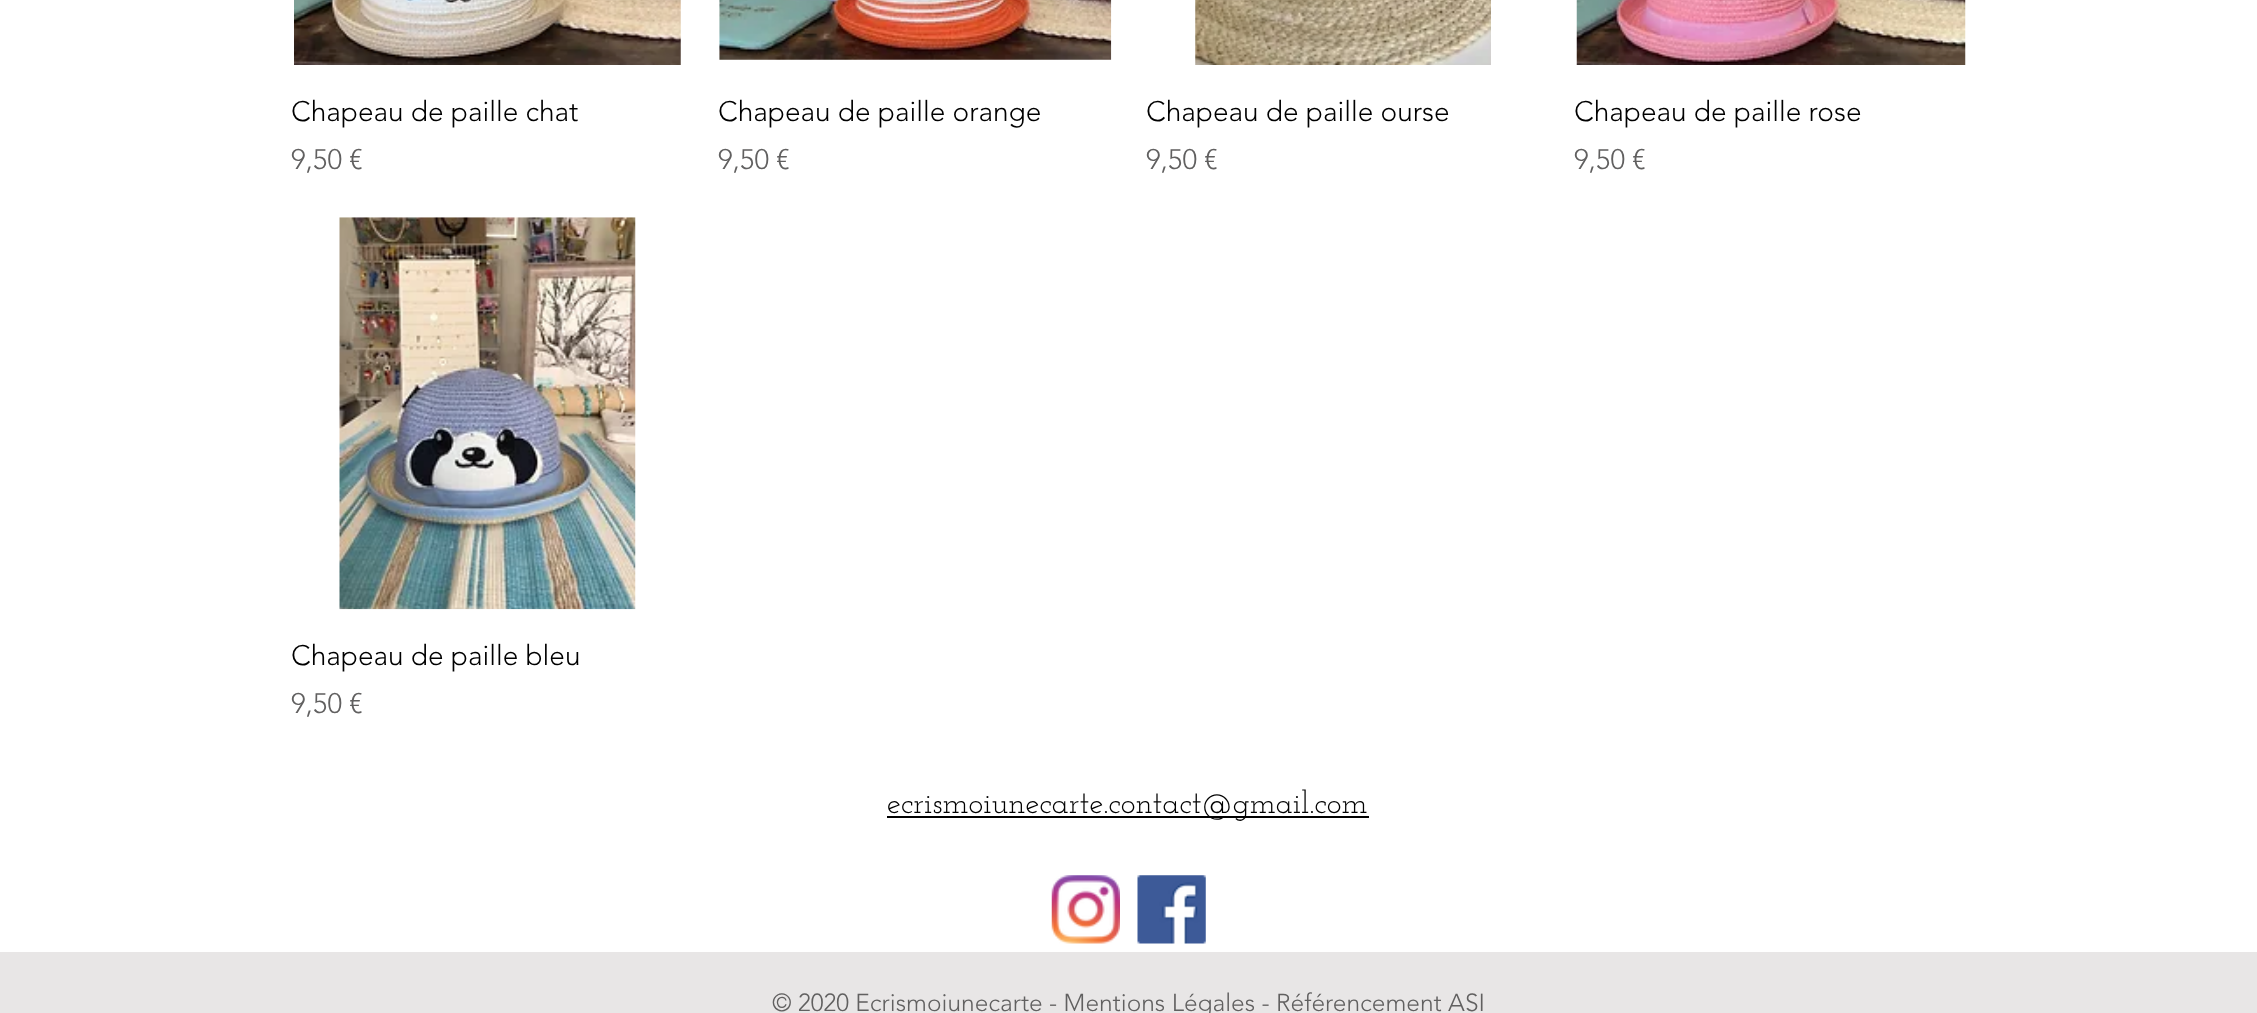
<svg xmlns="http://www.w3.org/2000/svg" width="2257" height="1013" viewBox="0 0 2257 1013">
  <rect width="100%" height="100%" fill="#ffffff"/>
  <image x="294" y="0" width="387" height="65" href="img1.png"/>
  <text x="291" y="121" font-family="'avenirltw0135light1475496'" font-size="28" font-weight="300" fill="#000000">Chapeau de paille chat</text>
  <text x="291" y="169" font-family="'avenirltw0135light1475496'" font-size="28" font-weight="300" fill="#616060">9,50 €</text>
  <image x="719" y="0" width="393" height="60" href="img2.png"/>
  <text x="718" y="121" font-family="'avenirltw0135light1475496'" font-size="28" font-weight="300" fill="#000000">Chapeau de paille orange</text>
  <text x="718" y="169" font-family="'avenirltw0135light1475496'" font-size="28" font-weight="300" fill="#616060">9,50 €</text>
  <image x="1195" y="0" width="296" height="65" href="img3.png"/>
  <text x="1146" y="121" font-family="'avenirltw0135light1475496'" font-size="28" font-weight="300" fill="#000000">Chapeau de paille ourse</text>
  <text x="1146" y="169" font-family="'avenirltw0135light1475496'" font-size="28" font-weight="300" fill="#616060">9,50 €</text>
  <image x="1576" y="0" width="390" height="65" href="img4.png"/>
  <text x="1574" y="121" font-family="'avenirltw0135light1475496'" font-size="28" font-weight="300" fill="#000000">Chapeau de paille rose</text>
  <text x="1574" y="169" font-family="'avenirltw0135light1475496'" font-size="28" font-weight="300" fill="#616060">9,50 €</text>
  <image x="339" y="217" width="297" height="393" href="img5.png"/>
  <text x="291" y="665" font-family="'avenirltw0135light1475496'" font-size="28" font-weight="300" fill="#000000">Chapeau de paille bleu</text>
  <text x="291" y="713" font-family="'avenirltw0135light1475496'" font-size="28" font-weight="300" fill="#616060">9,50 €</text>
  <rect x="887" y="816" width="482" height="2" fill="#000000"/>
  <text x="887" y="813" font-family="Josefin Slab" font-size="31.5" fill="#000000">ecrismoiunecarte.contact@gmail.com</text>
  <image x="1051" y="875" width="69" height="69" href="img6.png"/>
  <image x="1137" y="875" width="69" height="69" href="img7.png"/>
  <rect x="0" y="952" width="2257" height="61" fill="#e8e6e6"/>
  <text x="772" y="1011" font-family="'avenirltw0135light1475496'" font-size="24.5" font-weight="300" fill="#616060">© 2020 Ecrismoiunecarte - Mentions Légales - Référencement ASI</text>
</svg>
